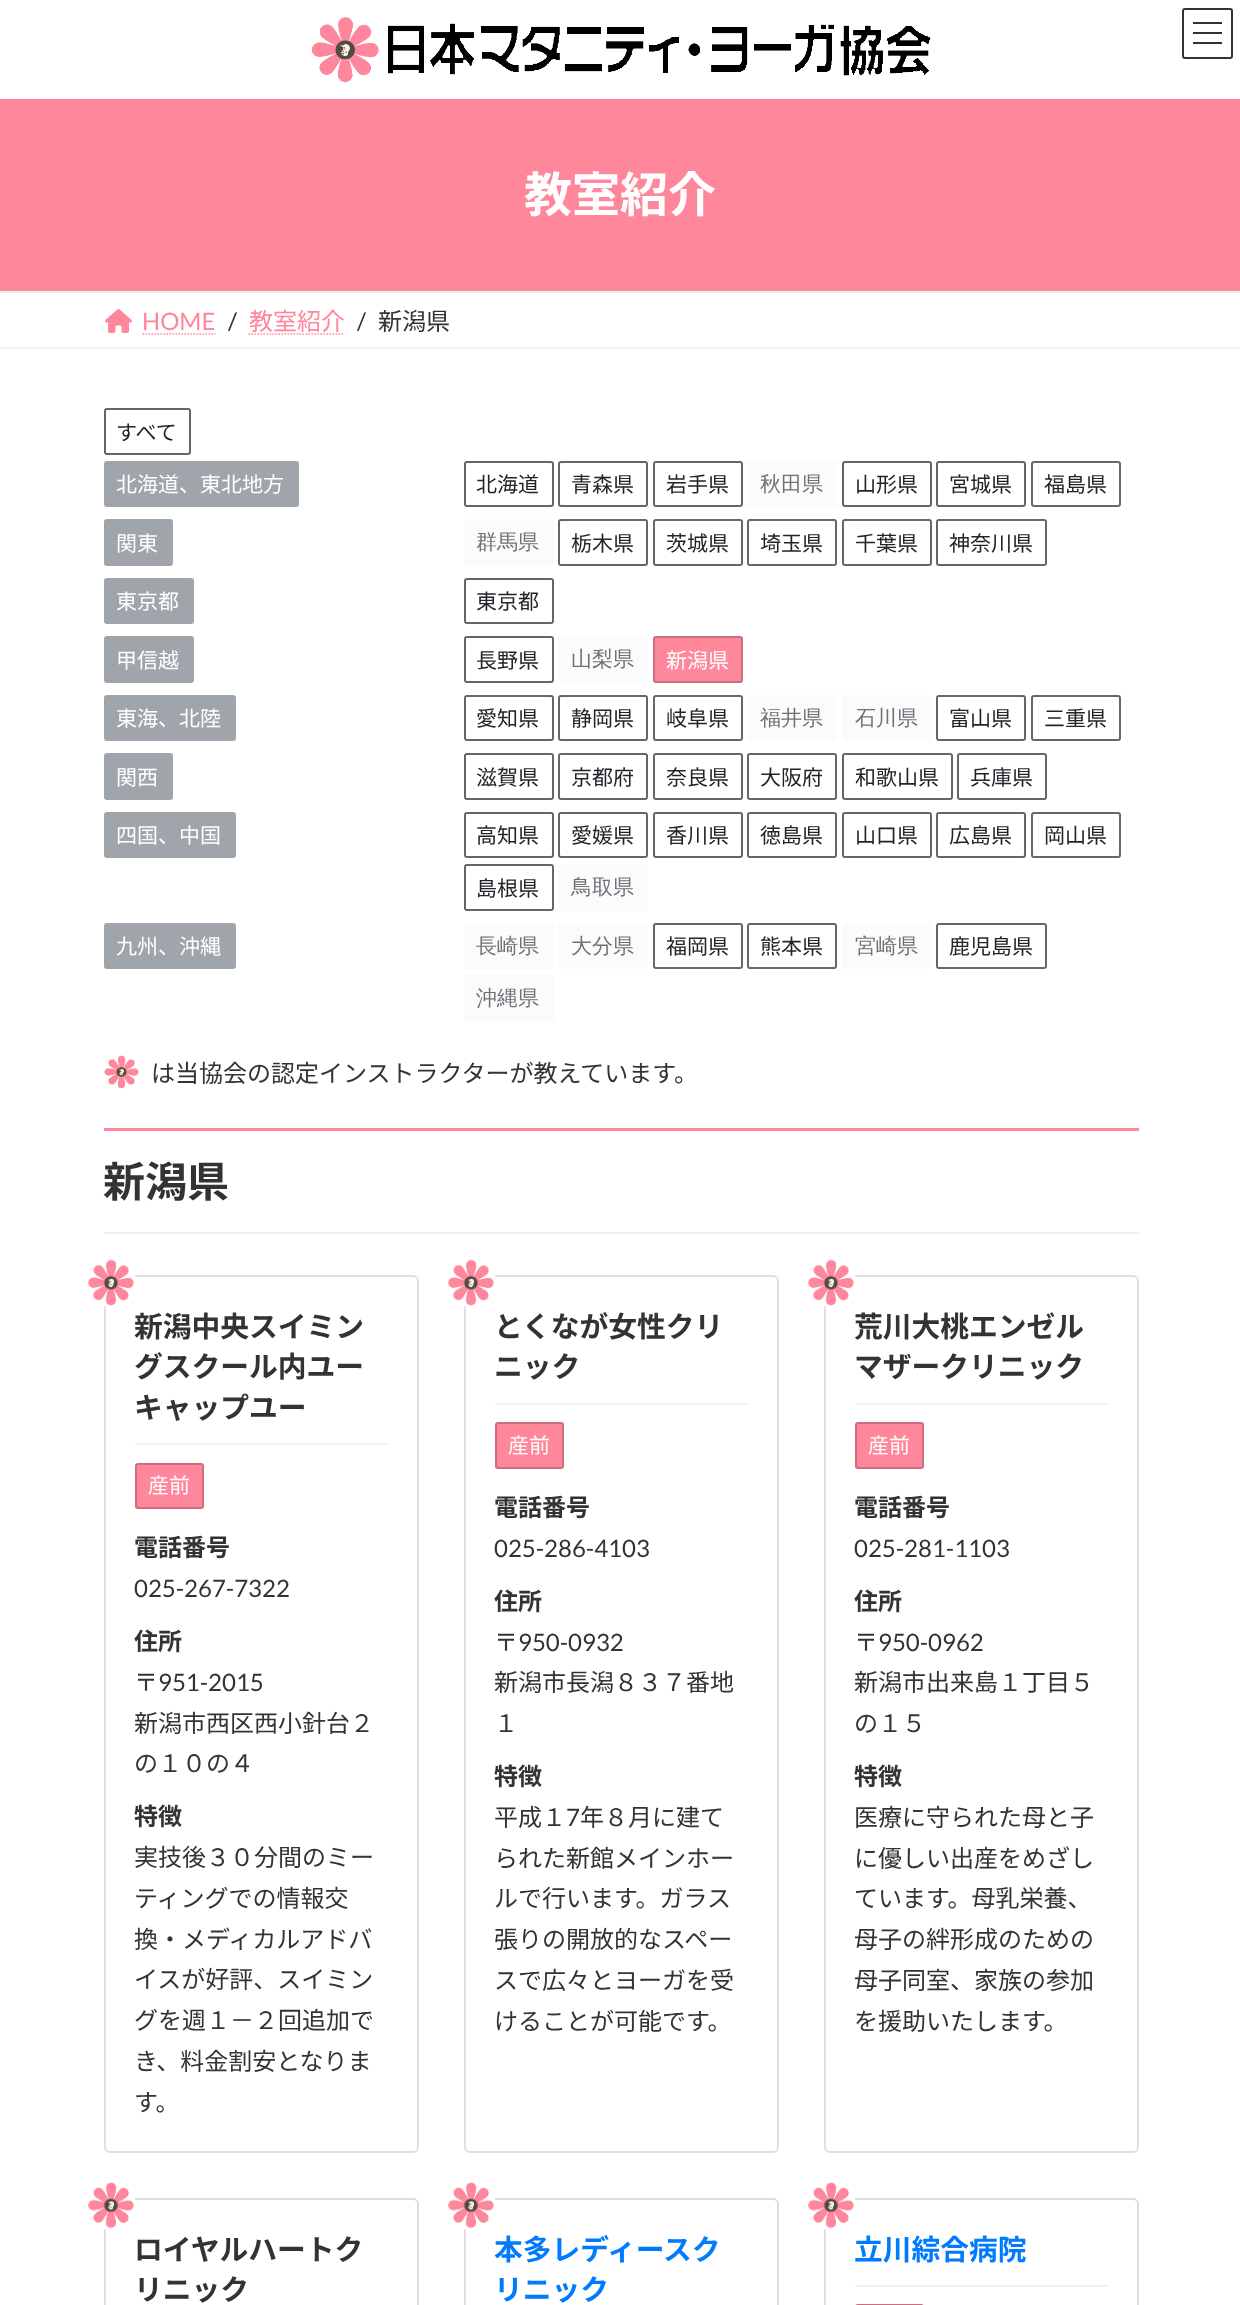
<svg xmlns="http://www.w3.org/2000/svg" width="1240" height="2305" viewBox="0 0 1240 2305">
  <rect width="100%" height="100%" fill="#ffffff"/>
  <image x="311" y="17" width="620" height="66" href="img1.png"/>
  <rect x="1193" y="22" width="29" height="2" fill="#333333"/>
  <rect x="1193" y="32" width="29" height="2" fill="#333333"/>
  <rect x="1193" y="42" width="29" height="2" fill="#333333"/>
  <rect x="1183" y="9" width="49" height="49" rx="2" fill="none" stroke="#333333" stroke-width="2"/>
  <rect x="0" y="99" width="1240" height="192" fill="#ff879c"/>
  <text x="524" y="212" font-family="Noto Sans JP" font-size="48" font-weight="bold" fill="#ffffff">教室紹介</text>
  <rect x="0" y="291" width="1240" height="2" fill="#f0f0f0"/>
  <rect x="0" y="347" width="1240" height="2" fill="#f0f0f0"/>
  <image x="105" y="309" width="27" height="24" href="img2.png"/>
  <text x="142" y="330" font-family="Lato" font-size="24" fill="#ff879c">HOME</text>
  <path d="M142.5 334H215.5" fill="none" stroke="#ff879c" stroke-width="1.5" stroke-dasharray="1.5 1.5"/>
  <text x="228" y="330" font-family="Lato" font-size="24" fill="#333333">/</text>
  <text x="249" y="330" font-family="Noto Sans JP" font-size="24" fill="#ff879c">教室紹介</text>
  <path d="M248.5 334H344.5" fill="none" stroke="#ff879c" stroke-width="1.5" stroke-dasharray="1.5 1.5"/>
  <text x="357" y="330" font-family="Lato" font-size="24" fill="#333333">/</text>
  <text x="378" y="330" font-family="Noto Sans JP" font-size="24" fill="#333333">新潟県</text>
  <rect x="105" y="409" width="85" height="45" rx="2" fill="none" stroke="#666666" stroke-width="2"/>
  <text x="116" y="440" font-family="Noto Sans JP" font-size="21" fill="#212529">すべて</text>
  <rect x="105" y="462" width="193" height="44" rx="2" fill="#9fa5ab" stroke="#9fa5ab" stroke-width="2"/>
  <text x="116" y="492" font-family="Noto Sans JP" font-size="21" fill="#ffffff">北海道、東北地方</text>
  <rect x="465" y="462" width="88" height="44" rx="2" fill="none" stroke="#666666" stroke-width="2"/>
  <text x="476" y="492" font-family="Noto Sans JP" font-size="21" fill="#212529">北海道</text>
  <rect x="559" y="462" width="88" height="44" rx="2" fill="none" stroke="#666666" stroke-width="2"/>
  <text x="571" y="492" font-family="Noto Sans JP" font-size="21" fill="#212529">青森県</text>
  <rect x="654" y="462" width="88" height="44" rx="2" fill="none" stroke="#666666" stroke-width="2"/>
  <text x="666" y="492" font-family="Noto Sans JP" font-size="21" fill="#212529">岩手県</text>
  <rect x="747" y="461" width="90" height="46" rx="3" fill="#fafbfc"/>
  <text x="760" y="491" font-family="WenQuanYi Zen Hei" font-size="21" font-weight="500" fill="#6f7174">秋田県</text>
  <rect x="843" y="462" width="88" height="44" rx="2" fill="none" stroke="#666666" stroke-width="2"/>
  <text x="855" y="492" font-family="Noto Sans JP" font-size="21" fill="#212529">山形県</text>
  <rect x="937" y="462" width="88" height="44" rx="2" fill="none" stroke="#666666" stroke-width="2"/>
  <text x="949" y="492" font-family="Noto Sans JP" font-size="21" fill="#212529">宮城県</text>
  <rect x="1032" y="462" width="88" height="44" rx="2" fill="none" stroke="#666666" stroke-width="2"/>
  <text x="1044" y="492" font-family="Noto Sans JP" font-size="21" fill="#212529">福島県</text>
  <rect x="105" y="520" width="67" height="45" rx="2" fill="#9fa5ab" stroke="#9fa5ab" stroke-width="2"/>
  <text x="116" y="551" font-family="Noto Sans JP" font-size="21" fill="#ffffff">関東</text>
  <rect x="464" y="519" width="90" height="47" rx="3" fill="#fafbfc"/>
  <text x="476" y="549" font-family="WenQuanYi Zen Hei" font-size="21" font-weight="500" fill="#6f7174">群馬県</text>
  <rect x="559" y="520" width="88" height="45" rx="2" fill="none" stroke="#666666" stroke-width="2"/>
  <text x="571" y="551" font-family="Noto Sans JP" font-size="21" fill="#212529">栃木県</text>
  <rect x="654" y="520" width="88" height="45" rx="2" fill="none" stroke="#666666" stroke-width="2"/>
  <text x="666" y="551" font-family="Noto Sans JP" font-size="21" fill="#212529">茨城県</text>
  <rect x="748" y="520" width="88" height="45" rx="2" fill="none" stroke="#666666" stroke-width="2"/>
  <text x="760" y="551" font-family="Noto Sans JP" font-size="21" fill="#212529">埼玉県</text>
  <rect x="843" y="520" width="88" height="45" rx="2" fill="none" stroke="#666666" stroke-width="2"/>
  <text x="855" y="551" font-family="Noto Sans JP" font-size="21" fill="#212529">千葉県</text>
  <rect x="937" y="520" width="109" height="45" rx="2" fill="none" stroke="#666666" stroke-width="2"/>
  <text x="949" y="551" font-family="Noto Sans JP" font-size="21" fill="#212529">神奈川県</text>
  <rect x="105" y="579" width="88" height="44" rx="2" fill="#9fa5ab" stroke="#9fa5ab" stroke-width="2"/>
  <text x="116" y="609" font-family="Noto Sans JP" font-size="21" fill="#ffffff">東京都</text>
  <rect x="465" y="579" width="88" height="44" rx="2" fill="none" stroke="#666666" stroke-width="2"/>
  <text x="476" y="609" font-family="Noto Sans JP" font-size="21" fill="#212529">東京都</text>
  <rect x="105" y="637" width="88" height="45" rx="2" fill="#9fa5ab" stroke="#9fa5ab" stroke-width="2"/>
  <text x="116" y="668" font-family="Noto Sans JP" font-size="21" fill="#ffffff">甲信越</text>
  <rect x="465" y="637" width="88" height="45" rx="2" fill="none" stroke="#666666" stroke-width="2"/>
  <text x="476" y="668" font-family="Noto Sans JP" font-size="21" fill="#212529">長野県</text>
  <rect x="558" y="636" width="90" height="47" rx="3" fill="#fafbfc"/>
  <text x="571" y="666" font-family="WenQuanYi Zen Hei" font-size="21" font-weight="500" fill="#6f7174">山梨県</text>
  <rect x="654" y="637" width="88" height="45" rx="2" fill="#ff879c" stroke="#cc6c7d" stroke-width="2"/>
  <text x="666" y="668" font-family="Noto Sans JP" font-size="21" fill="#ffffff">新潟県</text>
  <rect x="105" y="696" width="130" height="44" rx="2" fill="#9fa5ab" stroke="#9fa5ab" stroke-width="2"/>
  <text x="116" y="726" font-family="Noto Sans JP" font-size="21" fill="#ffffff">東海、北陸</text>
  <rect x="465" y="696" width="88" height="44" rx="2" fill="none" stroke="#666666" stroke-width="2"/>
  <text x="476" y="726" font-family="Noto Sans JP" font-size="21" fill="#212529">愛知県</text>
  <rect x="559" y="696" width="88" height="44" rx="2" fill="none" stroke="#666666" stroke-width="2"/>
  <text x="571" y="726" font-family="Noto Sans JP" font-size="21" fill="#212529">静岡県</text>
  <rect x="654" y="696" width="88" height="44" rx="2" fill="none" stroke="#666666" stroke-width="2"/>
  <text x="666" y="726" font-family="Noto Sans JP" font-size="21" fill="#212529">岐阜県</text>
  <rect x="747" y="695" width="90" height="46" rx="3" fill="#fafbfc"/>
  <text x="760" y="725" font-family="WenQuanYi Zen Hei" font-size="21" font-weight="500" fill="#6f7174">福井県</text>
  <rect x="842" y="695" width="90" height="46" rx="3" fill="#fafbfc"/>
  <text x="855" y="725" font-family="WenQuanYi Zen Hei" font-size="21" font-weight="500" fill="#6f7174">石川県</text>
  <rect x="937" y="696" width="88" height="44" rx="2" fill="none" stroke="#666666" stroke-width="2"/>
  <text x="949" y="726" font-family="Noto Sans JP" font-size="21" fill="#212529">富山県</text>
  <rect x="1032" y="696" width="88" height="44" rx="2" fill="none" stroke="#666666" stroke-width="2"/>
  <text x="1044" y="726" font-family="Noto Sans JP" font-size="21" fill="#212529">三重県</text>
  <rect x="105" y="754" width="67" height="45" rx="2" fill="#9fa5ab" stroke="#9fa5ab" stroke-width="2"/>
  <text x="116" y="785" font-family="Noto Sans JP" font-size="21" fill="#ffffff">関西</text>
  <rect x="465" y="754" width="88" height="45" rx="2" fill="none" stroke="#666666" stroke-width="2"/>
  <text x="476" y="785" font-family="Noto Sans JP" font-size="21" fill="#212529">滋賀県</text>
  <rect x="559" y="754" width="88" height="45" rx="2" fill="none" stroke="#666666" stroke-width="2"/>
  <text x="571" y="785" font-family="Noto Sans JP" font-size="21" fill="#212529">京都府</text>
  <rect x="654" y="754" width="88" height="45" rx="2" fill="none" stroke="#666666" stroke-width="2"/>
  <text x="666" y="785" font-family="Noto Sans JP" font-size="21" fill="#212529">奈良県</text>
  <rect x="748" y="754" width="88" height="45" rx="2" fill="none" stroke="#666666" stroke-width="2"/>
  <text x="760" y="785" font-family="Noto Sans JP" font-size="21" fill="#212529">大阪府</text>
  <rect x="843" y="754" width="109" height="45" rx="2" fill="none" stroke="#666666" stroke-width="2"/>
  <text x="855" y="785" font-family="Noto Sans JP" font-size="21" fill="#212529">和歌山県</text>
  <rect x="958" y="754" width="88" height="45" rx="2" fill="none" stroke="#666666" stroke-width="2"/>
  <text x="970" y="785" font-family="Noto Sans JP" font-size="21" fill="#212529">兵庫県</text>
  <rect x="105" y="813" width="130" height="44" rx="2" fill="#9fa5ab" stroke="#9fa5ab" stroke-width="2"/>
  <text x="116" y="843" font-family="Noto Sans JP" font-size="21" fill="#ffffff">四国、中国</text>
  <rect x="465" y="813" width="88" height="44" rx="2" fill="none" stroke="#666666" stroke-width="2"/>
  <text x="476" y="843" font-family="Noto Sans JP" font-size="21" fill="#212529">高知県</text>
  <rect x="559" y="813" width="88" height="44" rx="2" fill="none" stroke="#666666" stroke-width="2"/>
  <text x="571" y="843" font-family="Noto Sans JP" font-size="21" fill="#212529">愛媛県</text>
  <rect x="654" y="813" width="88" height="44" rx="2" fill="none" stroke="#666666" stroke-width="2"/>
  <text x="666" y="843" font-family="Noto Sans JP" font-size="21" fill="#212529">香川県</text>
  <rect x="748" y="813" width="88" height="44" rx="2" fill="none" stroke="#666666" stroke-width="2"/>
  <text x="760" y="843" font-family="Noto Sans JP" font-size="21" fill="#212529">徳島県</text>
  <rect x="843" y="813" width="88" height="44" rx="2" fill="none" stroke="#666666" stroke-width="2"/>
  <text x="855" y="843" font-family="Noto Sans JP" font-size="21" fill="#212529">山口県</text>
  <rect x="937" y="813" width="88" height="44" rx="2" fill="none" stroke="#666666" stroke-width="2"/>
  <text x="949" y="843" font-family="Noto Sans JP" font-size="21" fill="#212529">広島県</text>
  <rect x="1032" y="813" width="88" height="44" rx="2" fill="none" stroke="#666666" stroke-width="2"/>
  <text x="1044" y="843" font-family="Noto Sans JP" font-size="21" fill="#212529">岡山県</text>
  <rect x="465" y="865" width="88" height="45" rx="2" fill="none" stroke="#666666" stroke-width="2"/>
  <text x="476" y="896" font-family="Noto Sans JP" font-size="21" fill="#212529">島根県</text>
  <rect x="558" y="864" width="90" height="47" rx="3" fill="#fafbfc"/>
  <text x="571" y="894" font-family="WenQuanYi Zen Hei" font-size="21" font-weight="500" fill="#6f7174">鳥取県</text>
  <rect x="105" y="924" width="130" height="44" rx="2" fill="#9fa5ab" stroke="#9fa5ab" stroke-width="2"/>
  <text x="116" y="954" font-family="Noto Sans JP" font-size="21" fill="#ffffff">九州、沖縄</text>
  <rect x="464" y="923" width="90" height="46" rx="3" fill="#fafbfc"/>
  <text x="476" y="953" font-family="WenQuanYi Zen Hei" font-size="21" font-weight="500" fill="#6f7174">長崎県</text>
  <rect x="558" y="923" width="90" height="46" rx="3" fill="#fafbfc"/>
  <text x="571" y="953" font-family="WenQuanYi Zen Hei" font-size="21" font-weight="500" fill="#6f7174">大分県</text>
  <rect x="654" y="924" width="88" height="44" rx="2" fill="none" stroke="#666666" stroke-width="2"/>
  <text x="666" y="954" font-family="Noto Sans JP" font-size="21" fill="#212529">福岡県</text>
  <rect x="748" y="924" width="88" height="44" rx="2" fill="none" stroke="#666666" stroke-width="2"/>
  <text x="760" y="954" font-family="Noto Sans JP" font-size="21" fill="#212529">熊本県</text>
  <rect x="842" y="923" width="90" height="46" rx="3" fill="#fafbfc"/>
  <text x="855" y="953" font-family="WenQuanYi Zen Hei" font-size="21" font-weight="500" fill="#6f7174">宮崎県</text>
  <rect x="937" y="924" width="109" height="44" rx="2" fill="none" stroke="#666666" stroke-width="2"/>
  <text x="949" y="954" font-family="Noto Sans JP" font-size="21" fill="#212529">鹿児島県</text>
  <rect x="464" y="975" width="90" height="47" rx="3" fill="#fafbfc"/>
  <text x="476" y="1005" font-family="WenQuanYi Zen Hei" font-size="21" font-weight="500" fill="#6f7174">沖縄県</text>
  <image x="104" y="1055" width="35" height="34" href="img3.png"/>
  <text x="151" y="1082" font-family="Noto Sans JP" font-size="24" fill="#333333">は当協会の認定インストラクターが教えています。</text>
  <rect x="104" y="1128" width="1035" height="3" fill="#ff879c"/>
  <rect x="104" y="1232" width="1035" height="2" fill="#f0f0f0"/>
  <text x="103" y="1197" font-family="Noto Sans JP" font-size="42" font-weight="bold" fill="#333333">新潟県</text>
  <rect x="105" y="1276" width="313" height="876" rx="5" fill="none" stroke="#dfdfdf" stroke-width="2"/>
  <image x="87" y="1259" width="48" height="48" href="img4.png"/>
  <rect x="135" y="1443" width="252" height="2" fill="#f0f0f0"/>
  <text x="134" y="1337" font-family="Noto Sans JP" font-size="28.75" font-weight="bold" fill="#333333">新潟中央スイミン</text>
  <text x="134" y="1377" font-family="Noto Sans JP" font-size="28.75" font-weight="bold" fill="#333333">グスクール内ユー</text>
  <text x="134" y="1418" font-family="Noto Sans JP" font-size="28.75" font-weight="bold" fill="#333333">キャップユー</text>
  <rect x="136" y="1464" width="67" height="44" rx="2" fill="#ff879c" stroke="#cc6c7d" stroke-width="2"/>
  <text x="148" y="1493" font-family="Noto Sans JP" font-size="21" fill="#ffffff">産前</text>
  <text x="134" y="1556" font-family="Noto Sans JP" font-size="24" font-weight="bold" fill="#333333">電話番号</text>
  <text x="134" y="1597" font-family="Lato" font-size="24" fill="#333333">025-267-7322</text>
  <text x="134" y="1650" font-family="Noto Sans JP" font-size="24" font-weight="bold" fill="#333333">住所</text>
  <text x="134" y="1691" font-family="Noto Sans JP" font-size="24" fill="#333333">〒</text>
  <text x="158" y="1691" font-family="Lato" font-size="24" fill="#333333">951-2015</text>
  <text x="134" y="1732" font-family="Noto Sans JP" font-size="24" fill="#333333">新潟市西区西小針台２</text>
  <text x="134" y="1772" font-family="Noto Sans JP" font-size="24" fill="#333333">の１０の４</text>
  <text x="134" y="1825" font-family="Noto Sans JP" font-size="24" font-weight="bold" fill="#333333">特徴</text>
  <text x="134" y="1866" font-family="Noto Sans JP" font-size="24" fill="#333333">実技後３０分間のミー</text>
  <text x="134" y="1907" font-family="Noto Sans JP" font-size="24" fill="#333333">ティングでの情報交</text>
  <text x="134" y="1948" font-family="Noto Sans JP" font-size="24" fill="#333333">換・メディカルアドバ</text>
  <text x="134" y="1988" font-family="Noto Sans JP" font-size="24" fill="#333333">イスが好評、スイミン</text>
  <text x="134" y="2029" font-family="Noto Sans JP" font-size="24" fill="#333333">グを週１－２回追加で</text>
  <text x="134" y="2070" font-family="Noto Sans JP" font-size="24" fill="#333333">き、料金割安となりま</text>
  <text x="134" y="2111" font-family="Noto Sans JP" font-size="24" fill="#333333">す。</text>
  <rect x="465" y="1276" width="313" height="876" rx="5" fill="none" stroke="#dfdfdf" stroke-width="2"/>
  <image x="447" y="1259" width="48" height="48" href="img4.png"/>
  <rect x="495" y="1403" width="252" height="2" fill="#f0f0f0"/>
  <text x="494" y="1337" font-family="Noto Sans JP" font-size="28.75" font-weight="bold" fill="#333333">とくなが女性クリ</text>
  <text x="494" y="1377" font-family="Noto Sans JP" font-size="28.75" font-weight="bold" fill="#333333">ニック</text>
  <rect x="496" y="1423" width="67" height="45" rx="2" fill="#ff879c" stroke="#cc6c7d" stroke-width="2"/>
  <text x="508" y="1453" font-family="Noto Sans JP" font-size="21" fill="#ffffff">産前</text>
  <text x="494" y="1516" font-family="Noto Sans JP" font-size="24" font-weight="bold" fill="#333333">電話番号</text>
  <text x="494" y="1557" font-family="Lato" font-size="24" fill="#333333">025-286-4103</text>
  <text x="494" y="1610" font-family="Noto Sans JP" font-size="24" font-weight="bold" fill="#333333">住所</text>
  <text x="494" y="1651" font-family="Noto Sans JP" font-size="24" fill="#333333">〒</text>
  <text x="518" y="1651" font-family="Lato" font-size="24" fill="#333333">950-0932</text>
  <text x="494" y="1691" font-family="Noto Sans JP" font-size="24" fill="#333333">新潟市長潟８３７番地</text>
  <text x="494" y="1732" font-family="Noto Sans JP" font-size="24" fill="#333333">１</text>
  <text x="494" y="1785" font-family="Noto Sans JP" font-size="24" font-weight="bold" fill="#333333">特徴</text>
  <text x="494" y="1826" font-family="Noto Sans JP" font-size="24" fill="#333333">平成１</text>
  <text x="566" y="1826" font-family="Lato" font-size="24" fill="#333333">7</text>
  <text x="580" y="1826" font-family="Noto Sans JP" font-size="24" fill="#333333">年８月に建て</text>
  <text x="494" y="1867" font-family="Noto Sans JP" font-size="24" fill="#333333">られた新館メインホー</text>
  <text x="494" y="1907" font-family="Noto Sans JP" font-size="24" fill="#333333">ルで行います。ガラス</text>
  <text x="494" y="1948" font-family="Noto Sans JP" font-size="24" fill="#333333">張りの開放的なスペー</text>
  <text x="494" y="1989" font-family="Noto Sans JP" font-size="24" fill="#333333">スで広々とヨーガを受</text>
  <text x="494" y="2030" font-family="Noto Sans JP" font-size="24" fill="#333333">けることが可能です。</text>
  <rect x="825" y="1276" width="313" height="876" rx="5" fill="none" stroke="#dfdfdf" stroke-width="2"/>
  <image x="807" y="1259" width="48" height="48" href="img4.png"/>
  <rect x="855" y="1403" width="252" height="2" fill="#f0f0f0"/>
  <text x="854" y="1337" font-family="Noto Sans JP" font-size="28.75" font-weight="bold" fill="#333333">荒川大桃エンゼル</text>
  <text x="854" y="1377" font-family="Noto Sans JP" font-size="28.75" font-weight="bold" fill="#333333">マザークリニック</text>
  <rect x="856" y="1423" width="67" height="45" rx="2" fill="#ff879c" stroke="#cc6c7d" stroke-width="2"/>
  <text x="868" y="1453" font-family="Noto Sans JP" font-size="21" fill="#ffffff">産前</text>
  <text x="854" y="1516" font-family="Noto Sans JP" font-size="24" font-weight="bold" fill="#333333">電話番号</text>
  <text x="854" y="1557" font-family="Lato" font-size="24" fill="#333333">025-281-1103</text>
  <text x="854" y="1610" font-family="Noto Sans JP" font-size="24" font-weight="bold" fill="#333333">住所</text>
  <text x="854" y="1651" font-family="Noto Sans JP" font-size="24" fill="#333333">〒</text>
  <text x="878" y="1651" font-family="Lato" font-size="24" fill="#333333">950-0962</text>
  <text x="854" y="1691" font-family="Noto Sans JP" font-size="24" fill="#333333">新潟市出来島１丁目５</text>
  <text x="854" y="1732" font-family="Noto Sans JP" font-size="24" fill="#333333">の１５</text>
  <text x="854" y="1785" font-family="Noto Sans JP" font-size="24" font-weight="bold" fill="#333333">特徴</text>
  <text x="854" y="1826" font-family="Noto Sans JP" font-size="24" fill="#333333">医療に守られた母と子</text>
  <text x="854" y="1867" font-family="Noto Sans JP" font-size="24" fill="#333333">に優しい出産をめざし</text>
  <text x="854" y="1907" font-family="Noto Sans JP" font-size="24" fill="#333333">ています。母乳栄養、</text>
  <text x="854" y="1948" font-family="Noto Sans JP" font-size="24" fill="#333333">母子の絆形成のための</text>
  <text x="854" y="1989" font-family="Noto Sans JP" font-size="24" fill="#333333">母子同室、家族の参加</text>
  <text x="854" y="2030" font-family="Noto Sans JP" font-size="24" fill="#333333">を援助いたします。</text>
  <rect x="105" y="2199" width="313" height="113" rx="5" fill="none" stroke="#dfdfdf" stroke-width="2"/>
  <image x="87" y="2182" width="48" height="47" href="img5.png"/>
  <text x="134" y="2260" font-family="Noto Sans JP" font-size="28.75" font-weight="bold" fill="#333333">ロイヤルハートク</text>
  <text x="134" y="2300" font-family="Noto Sans JP" font-size="28.75" font-weight="bold" fill="#333333">リニック</text>
  <rect x="465" y="2199" width="313" height="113" rx="5" fill="none" stroke="#dfdfdf" stroke-width="2"/>
  <image x="447" y="2182" width="48" height="47" href="img5.png"/>
  <text x="494" y="2260" font-family="Noto Sans JP" font-size="28.75" font-weight="bold" fill="#007bff">本多レディースク</text>
  <text x="494" y="2300" font-family="Noto Sans JP" font-size="28.75" font-weight="bold" fill="#007bff">リニック</text>
  <rect x="825" y="2199" width="313" height="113" rx="5" fill="none" stroke="#dfdfdf" stroke-width="2"/>
  <image x="807" y="2182" width="48" height="47" href="img5.png"/>
  <rect x="855" y="2285" width="252" height="2" fill="#f0f0f0"/>
  <text x="854" y="2260" font-family="Noto Sans JP" font-size="28.75" font-weight="bold" fill="#007bff">立川綜合病院</text>
  <rect x="856" y="2305" width="67" height="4" rx="2" fill="none" stroke="#cc6c7d" stroke-width="2"/>
</svg>
